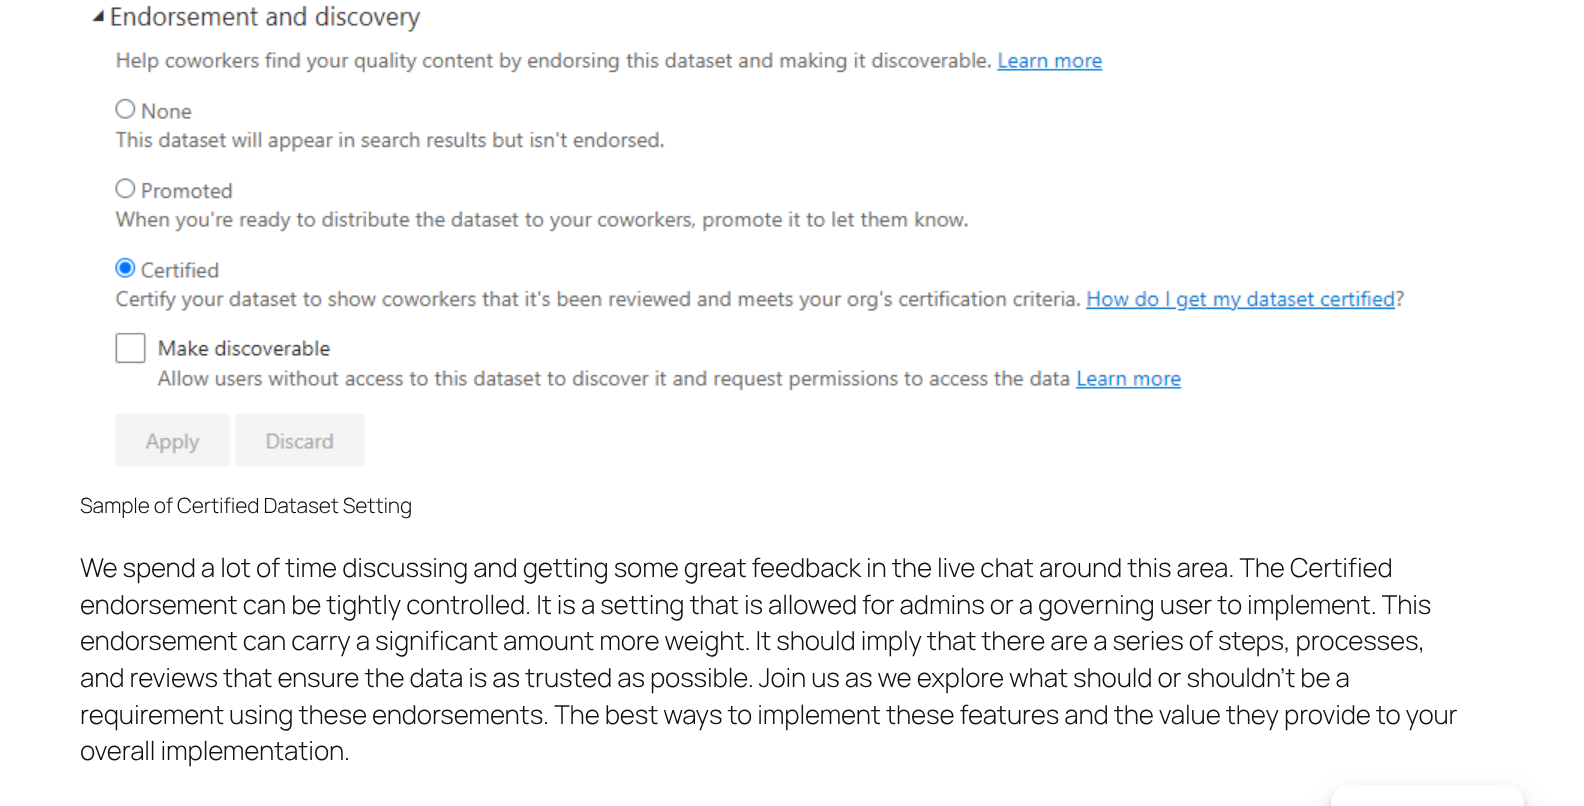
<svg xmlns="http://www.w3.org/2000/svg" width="1584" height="806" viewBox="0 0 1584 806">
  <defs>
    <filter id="blur1" x="-50%" y="-200%" width="200%" height="500%"><feGaussianBlur stdDeviation="4.5"/></filter>
    <filter id="blur2" x="-50%" y="-200%" width="200%" height="500%"><feGaussianBlur stdDeviation="15"/></filter>
  </defs>
  <rect width="100%" height="100%" fill="#ffffff"/>
  <image x="91" y="5" width="1314" height="462" href="img1.png"/>
  <text x="80" y="513" font-family="Manrope" font-size="21" font-weight="300" letter-spacing="-0.15" fill="#111111">Sample of Certified Dataset Setting</text>
  <text x="80" y="577" font-family="Manrope" font-size="26.15" font-weight="300" letter-spacing="-0.15" fill="#111111">We spend a lot of time discussing and getting some great feedback in the live chat around this area. The Certified</text>
  <text x="80" y="614" font-family="Manrope" font-size="26.15" font-weight="300" letter-spacing="-0.15" fill="#111111">endorsement can be tightly controlled. It is a setting that is allowed for admins or a governing user to implement. This</text>
  <text x="80" y="650" font-family="Manrope" font-size="26.15" font-weight="300" letter-spacing="-0.15" fill="#111111">endorsement can carry a significant amount more weight. It should imply that there are a series of steps, processes,</text>
  <text x="80" y="687" font-family="Manrope" font-size="26.15" font-weight="300" letter-spacing="-0.15" fill="#111111">and reviews that ensure the data is as trusted as possible. Join us as we explore what should or shouldn’t be a</text>
  <text x="80" y="724" font-family="Manrope" font-size="26.15" font-weight="300" letter-spacing="-0.15" fill="#111111">requirement using these endorsements. The best ways to implement these features and the value they provide to your</text>
  <text x="80" y="760" font-family="Manrope" font-size="26.15" font-weight="300" letter-spacing="-0.15" fill="#111111">overall implementation.</text>
  <rect x="1331" y="794" width="193" height="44" rx="18" fill="#000000" fill-opacity="0.23" filter="url(#blur1)"/>
  <rect x="1331" y="800" width="193" height="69" rx="18" fill="#000000" fill-opacity="0.19" filter="url(#blur2)"/>
  <path d="M1349 785H1506C1516 785 1524 793 1524 803V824H1331V803C1331 793 1339 785 1349 785Z" fill="#ffffff"/>
</svg>
